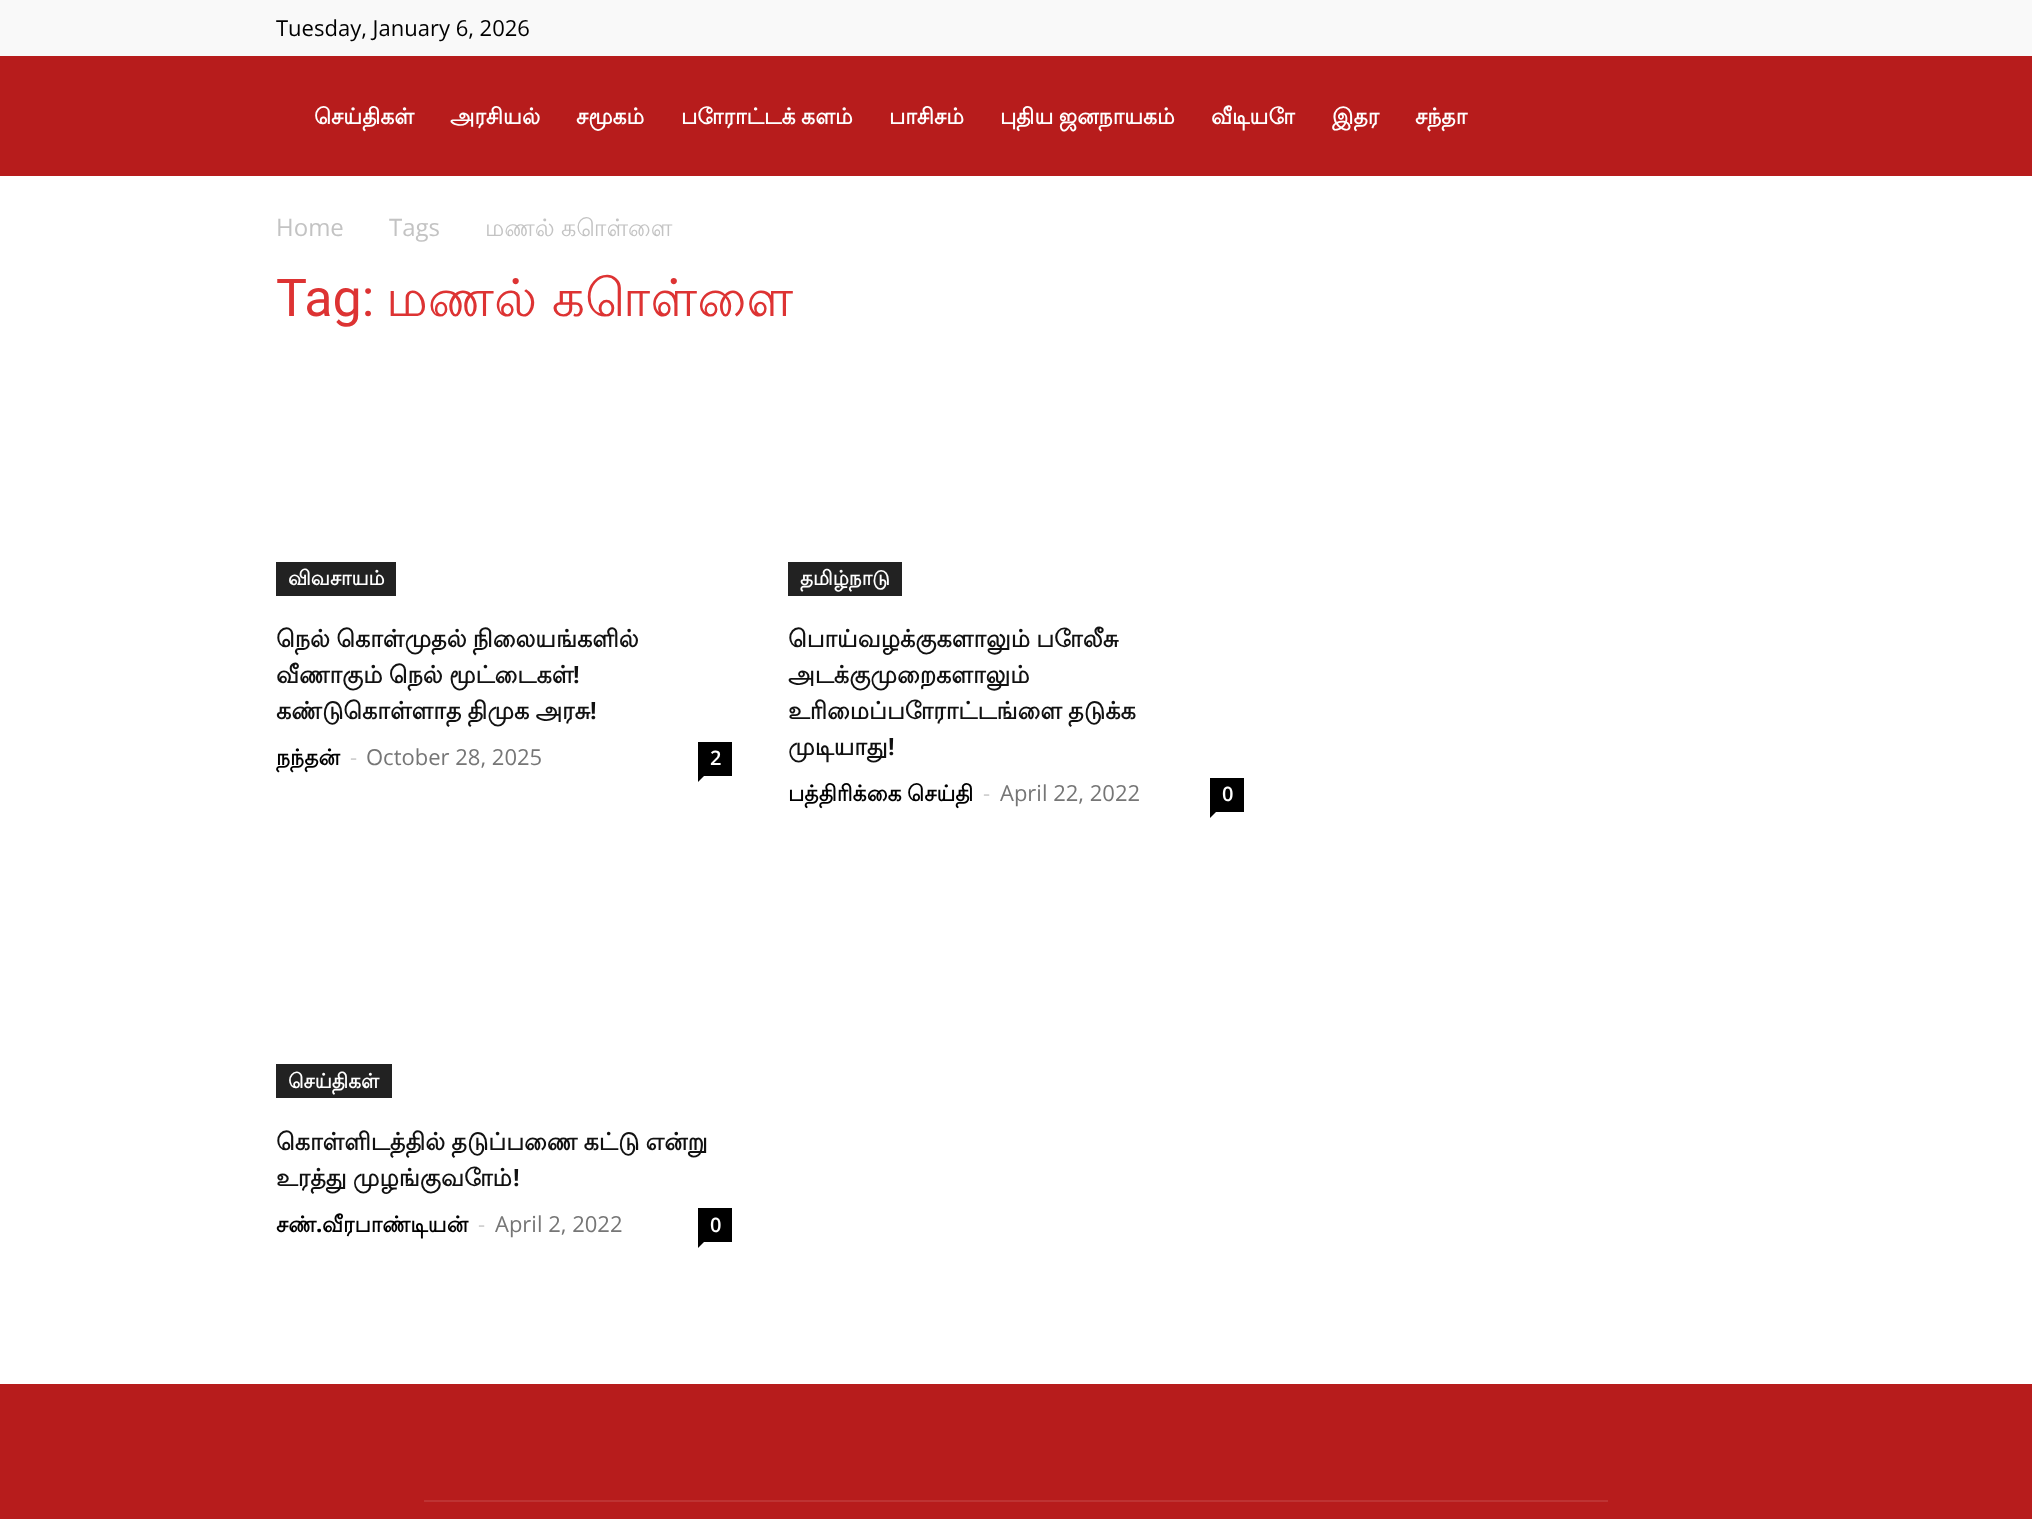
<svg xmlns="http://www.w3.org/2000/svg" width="2032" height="1519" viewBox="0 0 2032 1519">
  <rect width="100%" height="100%" fill="#ffffff"/>
  <rect x="0" y="0" width="2032" height="56" fill="#f9f9f9"/>
  <text x="276" y="36" font-family="Open Sans" font-size="22" fill="#000000">Tuesday, January 6, 2026</text>
  <rect x="0" y="56" width="2032" height="120" fill="#b71c1c"/>
  <text x="314" y="124" font-family="Lohit Tamil" font-size="22" font-weight="bold" fill="#ffffff">செய்திகள்</text>
  <text x="450" y="124" font-family="Lohit Tamil" font-size="22" font-weight="bold" fill="#ffffff">அரசியல்</text>
  <text x="576" y="124" font-family="Lohit Tamil" font-size="22" font-weight="bold" fill="#ffffff">சமூகம்</text>
  <text x="681" y="124" word-spacing="-1" font-family="Lohit Tamil" font-size="22" font-weight="bold" fill="#ffffff">போராட்டக் களம்</text>
  <text x="889" y="124" font-family="Lohit Tamil" font-size="22" font-weight="bold" fill="#ffffff">பாசிசம்</text>
  <text x="1000" y="124" word-spacing="-1" font-family="Lohit Tamil" font-size="22" font-weight="bold" fill="#ffffff">புதிய ஜனநாயகம்</text>
  <text x="1211" y="124" font-family="Lohit Tamil" font-size="22" font-weight="bold" fill="#ffffff">வீடியோ</text>
  <text x="1332" y="124" font-family="Lohit Tamil" font-size="22" font-weight="bold" fill="#ffffff">இதர</text>
  <text x="1415" y="124" font-family="Lohit Tamil" font-size="22" font-weight="bold" fill="#ffffff">சந்தா</text>
  <text x="276" y="236" font-family="Open Sans" font-size="24" fill="#c3c3c3">Home</text>
  <text x="389" y="236" font-family="Open Sans" font-size="24" fill="#c3c3c3">Tags</text>
  <text x="485" y="236" word-spacing="-1" font-family="Lohit Tamil" font-size="24" fill="#c3c3c3">மணல் கொள்ளை</text>
  <text x="276" y="316" font-family="Roboto" font-size="52" fill="#dd3333">Tag:</text>
  <text x="386" y="316" word-spacing="-1" font-family="Lohit Tamil" font-size="52" fill="#dd3333">மணல் கொள்ளை</text>
  <rect x="276" y="562" width="120" height="34" fill="#222222"/>
  <text x="288" y="585" font-family="Lohit Tamil" font-size="20" font-weight="bold" fill="#ffffff">விவசாயம்</text>
  <text x="276" y="647" word-spacing="-1" font-family="Lohit Tamil" font-size="24" font-weight="bold" fill="#111111">நெல் கொள்முதல் நிலையங்களில்</text>
  <text x="276" y="683" word-spacing="-1" font-family="Lohit Tamil" font-size="24" font-weight="bold" fill="#111111">வீணாகும் நெல் மூட்டைகள்</text>
  <text x="573" y="683" font-family="Roboto" font-size="24" font-weight="bold" fill="#111111">!</text>
  <text x="276" y="719" word-spacing="-1" font-family="Lohit Tamil" font-size="24" font-weight="bold" fill="#111111">கண்டுகொள்ளாத திமுக அரசு</text>
  <text x="590" y="719" font-family="Roboto" font-size="24" font-weight="bold" fill="#111111">!</text>
  <text x="276" y="765" font-family="Lohit Tamil" font-size="22" font-weight="bold" fill="#000000">நந்தன்</text>
  <text x="350" y="765" font-family="Open Sans" font-size="22" fill="#cccccc">-</text>
  <text x="366" y="765" font-family="Open Sans" font-size="22" fill="#767676">October 28, 2025</text>
  <rect x="698" y="742" width="34" height="34" fill="#000000"/>
  <text x="710" y="765" font-family="Open Sans" font-size="20" font-weight="600" fill="#ffffff">2</text>
  <path d="M698 776H704L698 782Z" fill="#000000"/>
  <rect x="788" y="562" width="114" height="34" fill="#222222"/>
  <text x="800" y="585" font-family="Lohit Tamil" font-size="20" font-weight="bold" fill="#ffffff">தமிழ்நாடு</text>
  <text x="788" y="647" word-spacing="-1" font-family="Lohit Tamil" font-size="24" font-weight="bold" fill="#111111">பொய்வழக்குகளாலும் போலீசு</text>
  <text x="788" y="683" font-family="Lohit Tamil" font-size="24" font-weight="bold" fill="#111111">அடக்குமுறைகளாலும்</text>
  <text x="788" y="719" word-spacing="-1" font-family="Lohit Tamil" font-size="24" font-weight="bold" fill="#111111">உரிமைப்போராட்டங்ளை தடுக்க</text>
  <text x="788" y="755" font-family="Lohit Tamil" font-size="24" font-weight="bold" fill="#111111">முடியாது</text>
  <text x="888" y="755" font-family="Roboto" font-size="24" font-weight="bold" fill="#111111">!</text>
  <text x="788" y="801" word-spacing="-1" font-family="Lohit Tamil" font-size="22" font-weight="bold" fill="#000000">பத்திரிக்கை செய்தி</text>
  <text x="983" y="801" font-family="Open Sans" font-size="22" fill="#cccccc">-</text>
  <text x="1000" y="801" font-family="Open Sans" font-size="22" fill="#767676">April 22, 2022</text>
  <rect x="1210" y="778" width="34" height="34" fill="#000000"/>
  <text x="1222" y="801" font-family="Open Sans" font-size="20" font-weight="600" fill="#ffffff">0</text>
  <path d="M1210 812H1216L1210 818Z" fill="#000000"/>
  <rect x="276" y="1064" width="116" height="34" fill="#222222"/>
  <text x="288" y="1088" font-family="Lohit Tamil" font-size="20" font-weight="bold" fill="#ffffff">செய்திகள்</text>
  <text x="276" y="1150" word-spacing="-1" font-family="Lohit Tamil" font-size="24" font-weight="bold" fill="#111111">கொள்ளிடத்தில் தடுப்பணை கட்டு என்று</text>
  <text x="276" y="1186" word-spacing="-1" font-family="Lohit Tamil" font-size="24" font-weight="bold" fill="#111111">உரத்து முழங்குவோம்</text>
  <text x="513" y="1186" font-family="Roboto" font-size="24" font-weight="bold" fill="#111111">!</text>
  <text x="276" y="1232" font-family="Lohit Tamil" font-size="22" font-weight="bold" fill="#000000">சண்</text>
  <text x="322" y="1232" font-family="Lohit Tamil" font-size="22" font-weight="bold" fill="#000000">வீரபாண்டியன்</text>
  <text x="478" y="1232" font-family="Open Sans" font-size="22" fill="#cccccc">-</text>
  <text x="316" y="1232" font-family="Open Sans" font-size="22" font-weight="bold" fill="#000000">.</text>
  <text x="495" y="1232" font-family="Open Sans" font-size="22" fill="#767676">April 2, 2022</text>
  <rect x="698" y="1208" width="34" height="34" fill="#000000"/>
  <text x="710" y="1232" font-family="Open Sans" font-size="20" font-weight="600" fill="#ffffff">0</text>
  <path d="M698 1242H704L698 1248Z" fill="#000000"/>
  <rect x="0" y="1384" width="2032" height="135" fill="#b71c1c"/>
  <rect x="424" y="1500" width="1184" height="2" fill="#be3333"/>
</svg>
